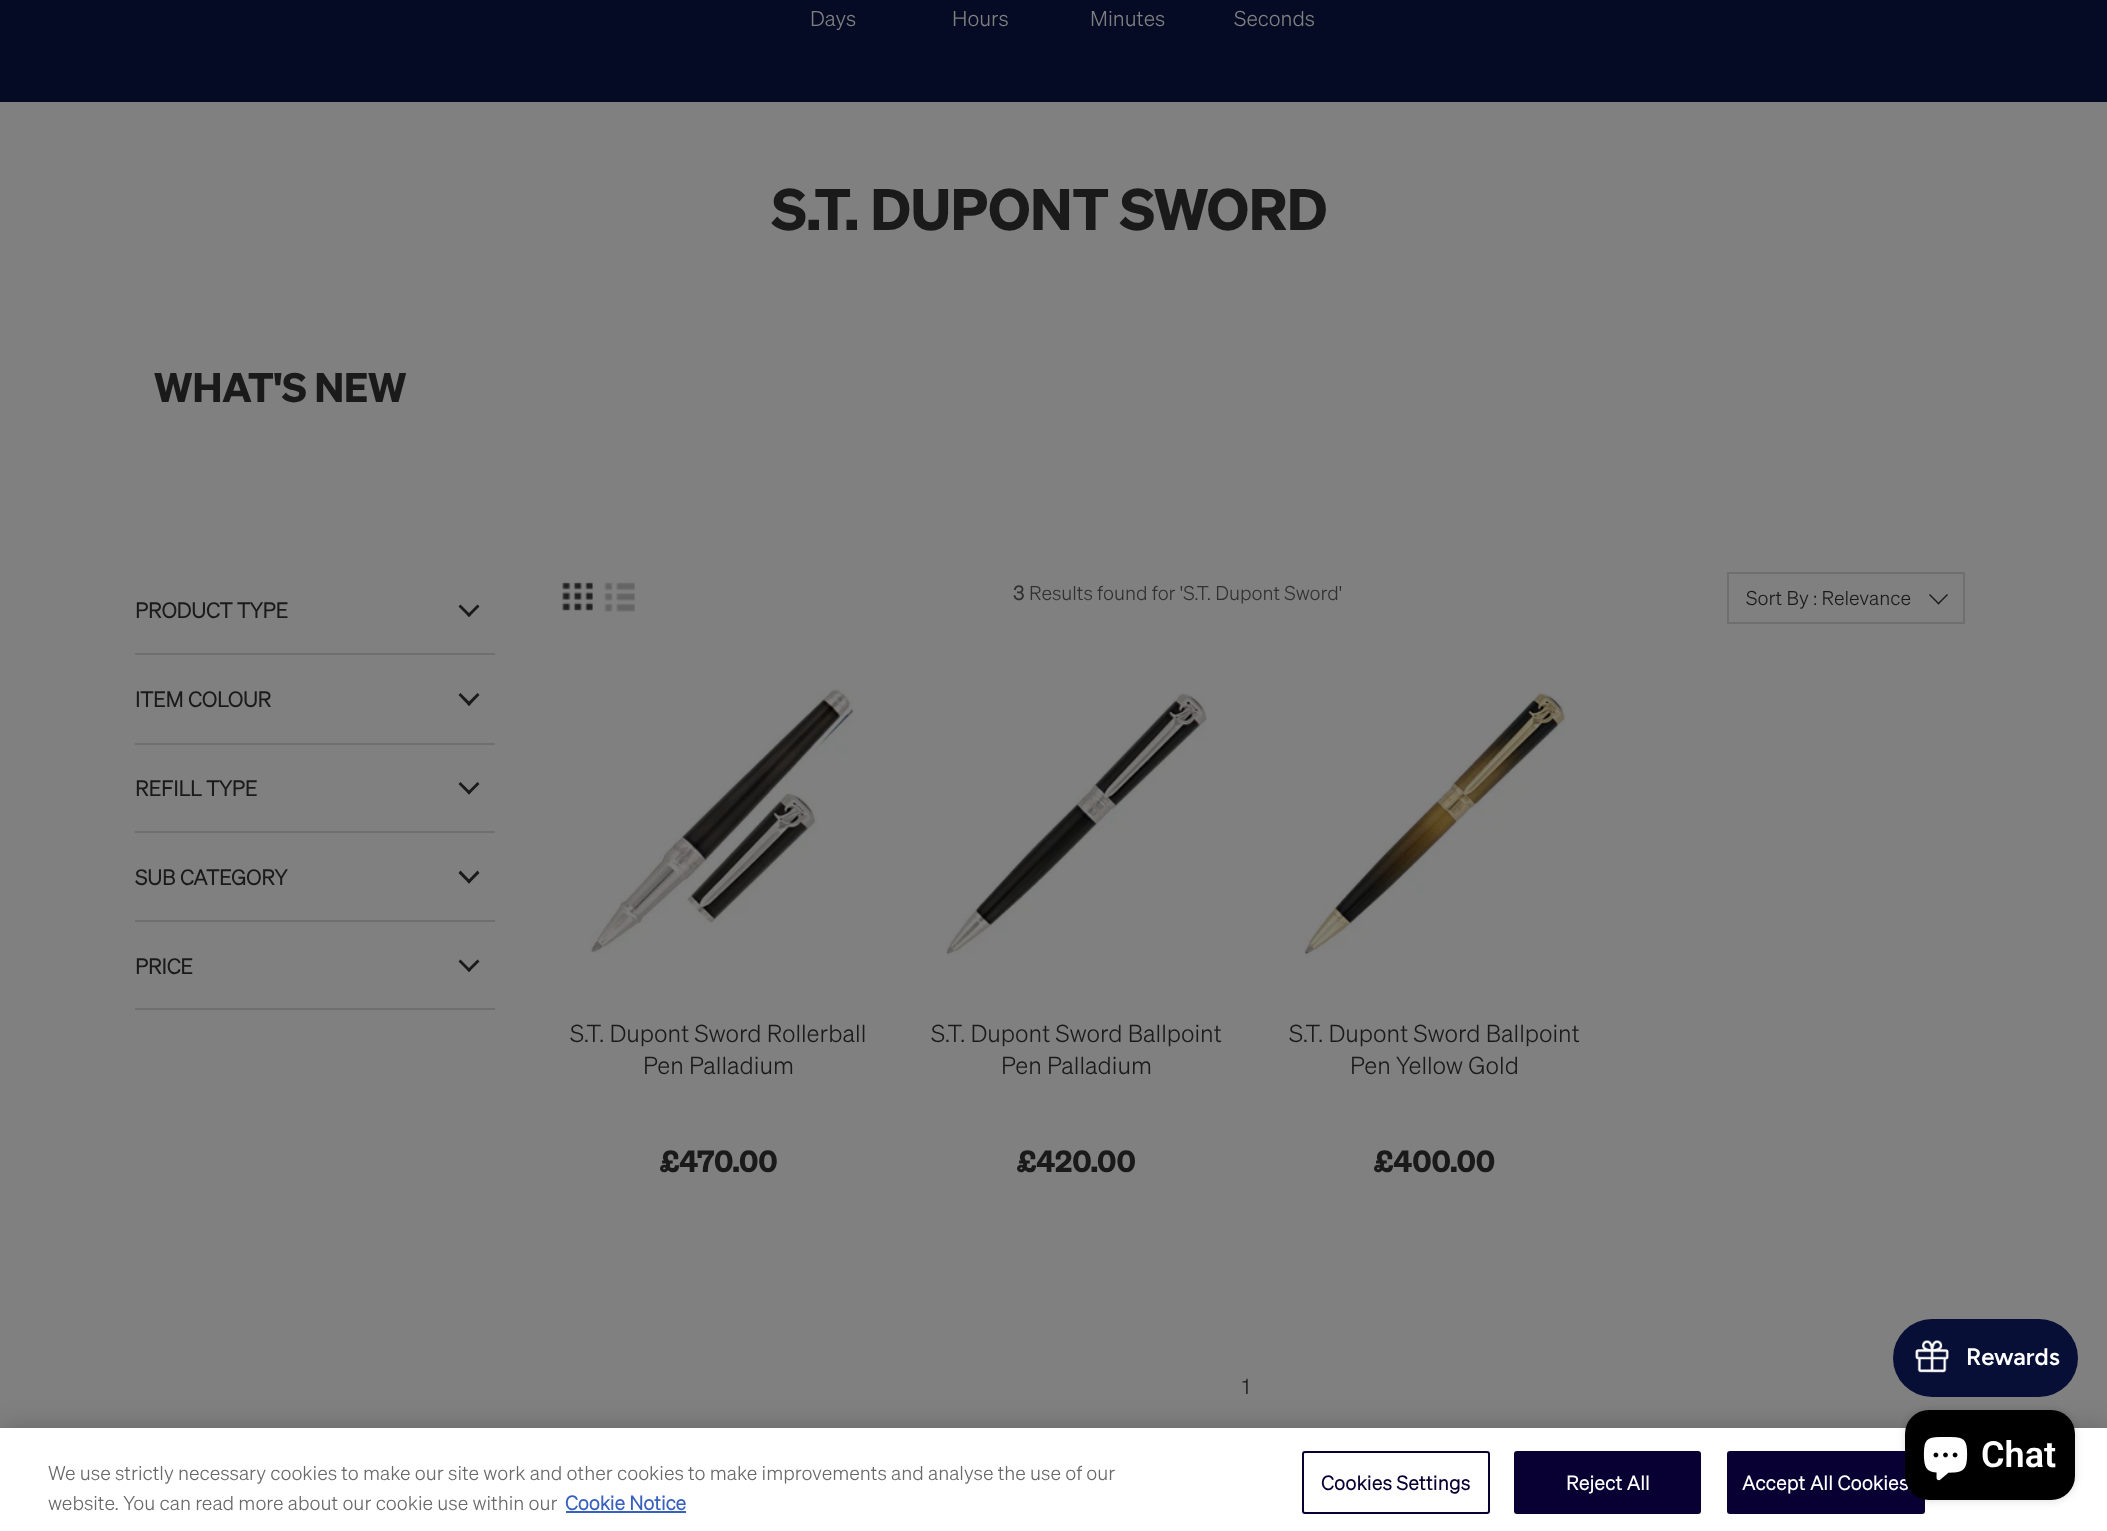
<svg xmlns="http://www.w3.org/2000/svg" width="2107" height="1531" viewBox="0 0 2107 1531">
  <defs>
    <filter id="blur1" x="-50%" y="-200%" width="200%" height="500%"><feGaussianBlur stdDeviation="13.5"/></filter>
    <filter id="blur2" x="-50%" y="-200%" width="200%" height="500%"><feGaussianBlur stdDeviation="4"/></filter>
  </defs>
  <rect width="100%" height="100%" fill="#808080"/>
  <rect x="0" y="0" width="2107" height="102" fill="#050b24"/>
  <text x="810" y="26" font-family="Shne" font-size="21" font-weight="300" fill="#808080">Days</text>
  <text x="952" y="26" font-family="Shne" font-size="21" font-weight="300" fill="#808080">Hours</text>
  <text x="1090" y="26" font-family="Shne" font-size="21" font-weight="300" fill="#808080">Minutes</text>
  <text x="1234" y="26" font-family="Shne" font-size="21" font-weight="300" fill="#808080">Seconds</text>
  <text x="772" y="230" font-family="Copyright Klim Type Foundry" font-size="57.25" font-weight="bold" fill="#1a1a1a">S.T. DUPONT SWORD</text>
  <text x="154" y="402" font-family="Copyright Klim Type Foundry" font-size="40.25" font-weight="bold" fill="#1a1a1a">WHAT'S NEW</text>
  <rect x="135" y="653" width="360" height="2" fill="#6f6f6f"/>
  <text x="135" y="618" font-family="Shne" font-size="21" font-weight="bold" fill="#1a1a1a">PRODUCT TYPE</text>
  <path d="M477.5 604.5L479.5 606.5L469 617L467 615Z" fill="#1a1a1a"/>
  <path d="M460.5 604.5L471 615L469 617L458.5 606.5Z" fill="#1a1a1a"/>
  <rect x="135" y="743" width="360" height="2" fill="#6f6f6f"/>
  <text x="135" y="707" font-family="Shne" font-size="21" font-weight="bold" fill="#1a1a1a">ITEM COLOUR</text>
  <path d="M477.5 693L479.5 695L469 706L467 703.5Z" fill="#1a1a1a"/>
  <path d="M460.5 693L471 703.5L469 706L458.5 695Z" fill="#1a1a1a"/>
  <rect x="135" y="831" width="360" height="2" fill="#6f6f6f"/>
  <text x="135" y="796" font-family="Shne" font-size="21" font-weight="bold" fill="#1a1a1a">REFILL TYPE</text>
  <path d="M477.5 782L479.5 784L469 794.5L467 792.5Z" fill="#1a1a1a"/>
  <path d="M460.5 782L471 792.5L469 794.5L458.5 784Z" fill="#1a1a1a"/>
  <rect x="135" y="920" width="360" height="2" fill="#6f6f6f"/>
  <text x="135" y="885" font-family="Shne" font-size="21" font-weight="bold" fill="#1a1a1a">SUB CATEGORY</text>
  <path d="M477.5 870.5L479.5 873L469 883.5L467 881.5Z" fill="#1a1a1a"/>
  <path d="M460.5 870.5L471 881.5L469 883.5L458.5 873Z" fill="#1a1a1a"/>
  <rect x="135" y="1008" width="360" height="2" fill="#6f6f6f"/>
  <text x="135" y="974" font-family="Shne" font-size="21" font-weight="bold" fill="#1a1a1a">PRICE</text>
  <path d="M477.5 959.5L479.5 961.5L469 972L467 970Z" fill="#1a1a1a"/>
  <path d="M460.5 959.5L471 970L469 972L458.5 961.5Z" fill="#1a1a1a"/>
  <image x="562" y="582" width="31" height="29" href="img1.png"/>
  <image x="604" y="582" width="31" height="30" href="img2.png"/>
  <text x="1013" y="600" font-family="Shne" font-size="19.5" font-weight="bold" fill="#313131">3</text>
  <text x="1029" y="600" font-family="Shne" font-size="19.5" font-weight="300" fill="#313131">Results found for 'S.T. Dupont Sword'</text>
  <rect x="1728" y="573" width="236" height="50" fill="none" stroke="#6f6f6f" stroke-width="2"/>
  <text x="1746" y="605" font-family="Shne" font-size="19.5" font-weight="300" fill="#1a1a1a">Sort By : Relevance</text>
  <path d="M1947 594L1948 595L1938.5 604.5L1937.5 603.5Z" fill="#1a1a1a"/>
  <path d="M1930 594L1939.5 603.5L1938.5 604.5L1929 595Z" fill="#1a1a1a"/>
  <image x="590" y="689" width="264" height="264" href="img3.png"/>
  <text x="570" y="1042" font-family="Shne" font-size="24" font-weight="300" fill="#1a1a1a">S.T. Dupont Sword Rollerball</text>
  <text x="643" y="1074" font-family="Shne" font-size="24" font-weight="300" fill="#1a1a1a">Pen Palladium</text>
  <text x="660" y="1172" font-family="Copyright Klim Type Foundry" font-size="30" font-weight="bold" fill="#1a1a1a">£470.00</text>
  <image x="946" y="693" width="261" height="262" href="img4.png"/>
  <text x="931" y="1042" font-family="Shne" font-size="24" font-weight="300" fill="#1a1a1a">S.T. Dupont Sword Ballpoint</text>
  <text x="1001" y="1074" font-family="Shne" font-size="24" font-weight="300" fill="#1a1a1a">Pen Palladium</text>
  <text x="1017" y="1172" font-family="Copyright Klim Type Foundry" font-size="30" font-weight="bold" fill="#1a1a1a">£420.00</text>
  <image x="1303" y="693" width="263" height="265" href="img5.png"/>
  <text x="1289" y="1042" font-family="Shne" font-size="24" font-weight="300" fill="#1a1a1a">S.T. Dupont Sword Ballpoint</text>
  <text x="1350" y="1074" font-family="Shne" font-size="24" font-weight="300" fill="#1a1a1a">Pen Yellow Gold</text>
  <text x="1374" y="1172" font-family="Copyright Klim Type Foundry" font-size="30" font-weight="bold" fill="#1a1a1a">£400.00</text>
  <text x="1242" y="1394" font-family="Shne" font-size="21" font-weight="300" fill="#1a1a1a">1</text>
  <rect x="0" y="1428" width="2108" height="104" fill="#000000" fill-opacity="0.2" filter="url(#blur1)"/>
  <rect x="1893" y="1319" width="185" height="78" rx="39" fill="#070f36"/>
  <image x="1915" y="1340" width="34" height="33" href="img6.png"/>
  <text x="1966" y="1365" font-family="Figtree" font-size="24" font-weight="600" fill="#ffffff">Rewards</text>
  <rect x="0" y="1428" width="2107" height="103" fill="#ffffff"/>
  <rect x="1728" y="1452" width="196" height="61" rx="2" fill="#080033" stroke="#080033" stroke-width="2"/>
  <rect x="1905" y="1410" width="170" height="90" rx="24" fill="#000000" fill-opacity="0.15" filter="url(#blur2)"/>
  <text x="1742" y="1490" font-family="Shne" font-size="19.5" font-weight="bold" letter-spacing="0.25" fill="#ffffff">Accept All Cookies</text>
  <rect x="1905" y="1410" width="170" height="90" rx="24" fill="#000000"/>
  <image x="1923" y="1437" width="45" height="44" href="img7.png"/>
  <text x="1981" y="1467" font-family="Roboto" font-size="36" font-weight="600" fill="#ffffff">Chat</text>
  <text x="48" y="1480" font-family="Shne" font-size="19.5" font-weight="300" fill="#696969">We use strictly necessary cookies to make our site work and other cookies to make improvements and analyse the use of our</text>
  <text x="48" y="1510" font-family="Shne" font-size="19.5" font-weight="300" fill="#696969">website. You can read more about our cookie use within our</text>
  <text x="565" y="1510" font-family="Shne" font-size="19.5" font-weight="bold" fill="#3860be">Cookie Notice</text>
  <rect x="566" y="1511" width="120" height="2" fill="#3860be"/>
  <rect x="1303" y="1452" width="186" height="61" rx="2" fill="none" stroke="#080033" stroke-width="2"/>
  <text x="1321" y="1490" font-family="Shne" font-size="19.5" font-weight="bold" letter-spacing="0.25" fill="#080033">Cookies Settings</text>
  <rect x="1515" y="1452" width="185" height="61" rx="2" fill="#080033" stroke="#080033" stroke-width="2"/>
  <text x="1566" y="1490" font-family="Shne" font-size="19.5" font-weight="bold" letter-spacing="0.25" fill="#ffffff">Reject All</text>
</svg>
